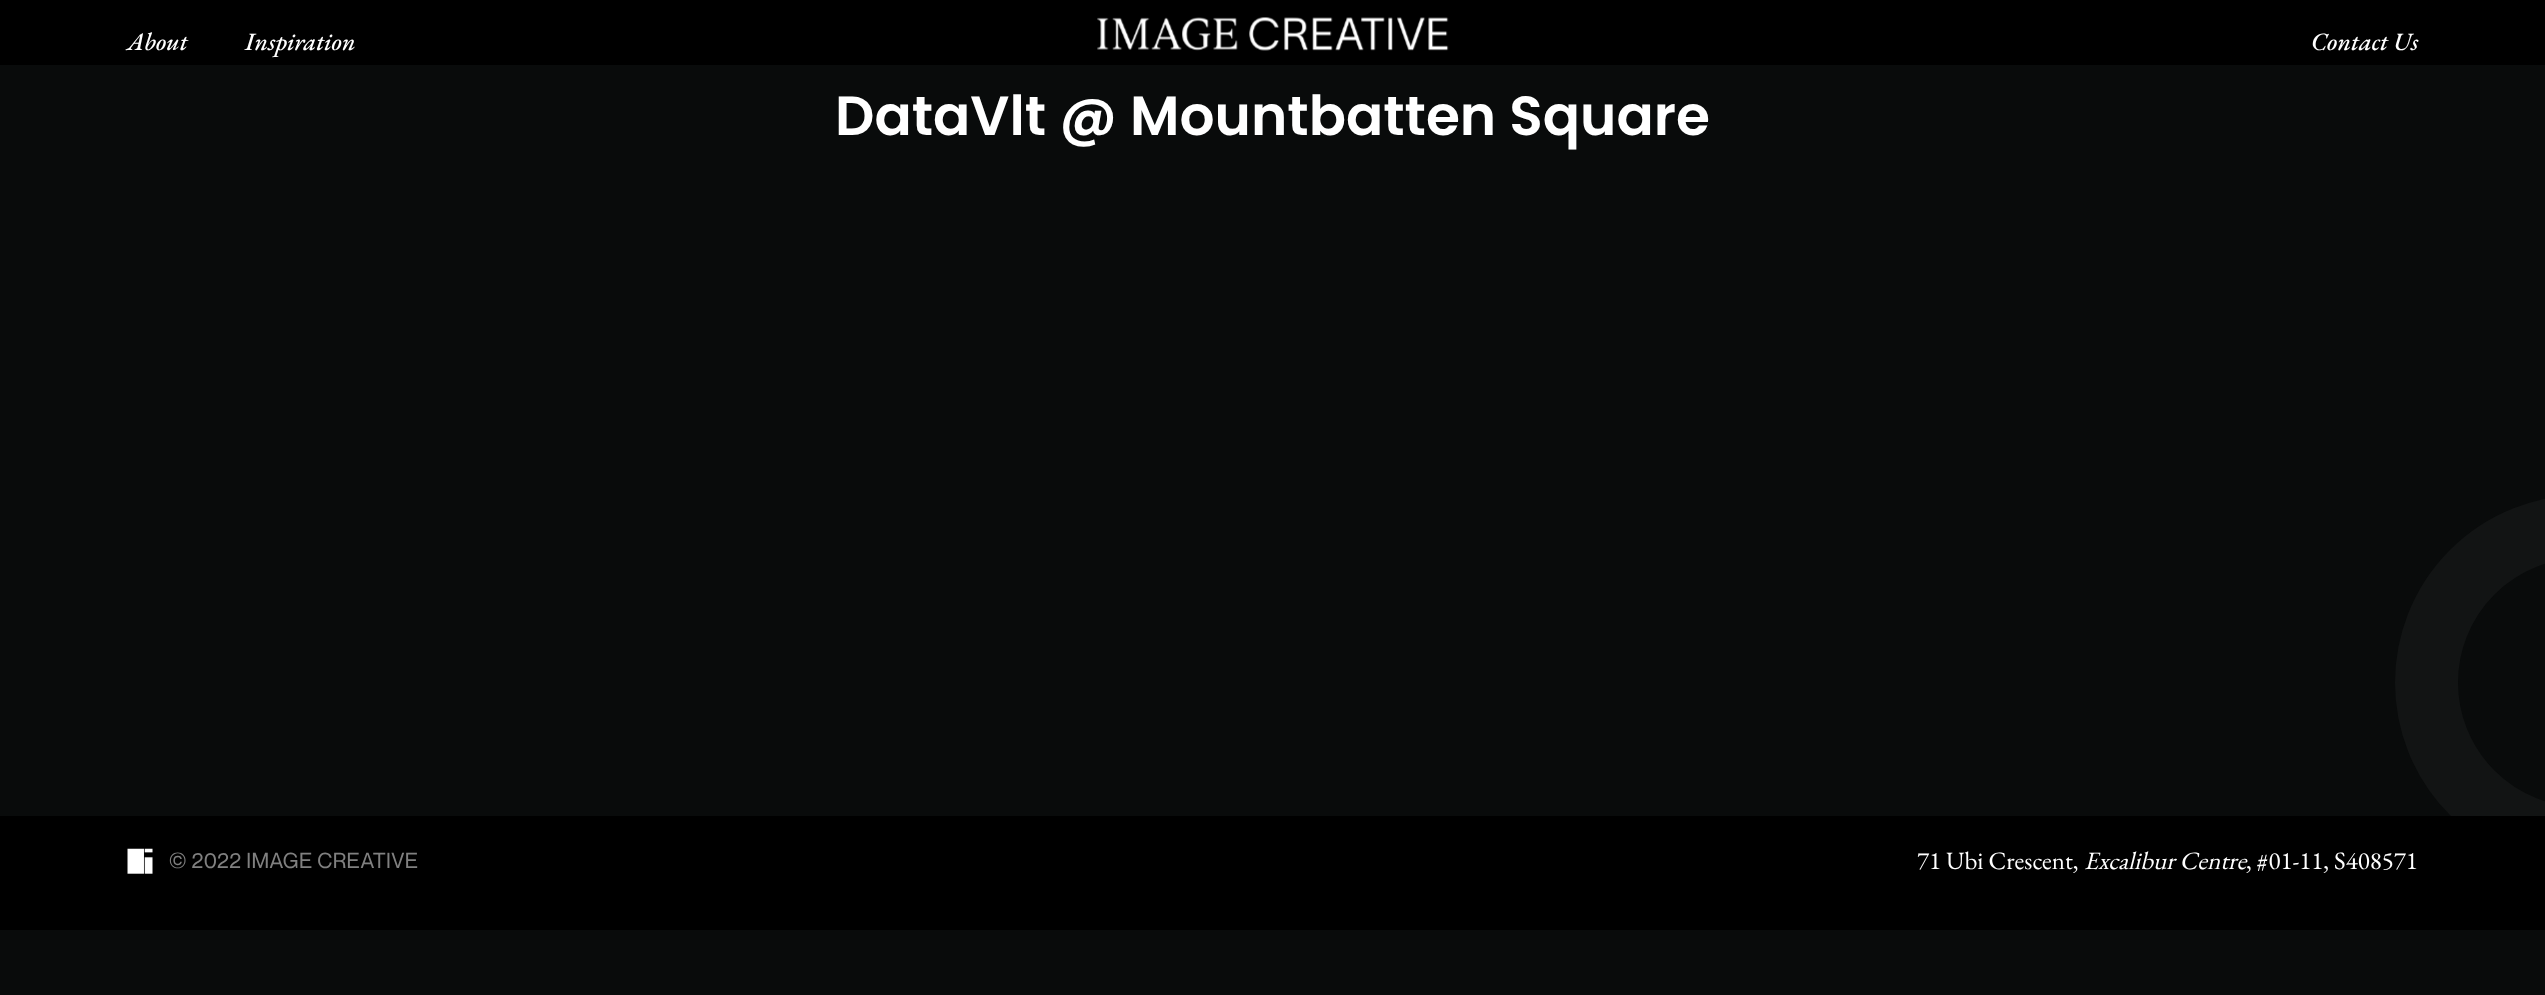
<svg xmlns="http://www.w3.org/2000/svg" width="2545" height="995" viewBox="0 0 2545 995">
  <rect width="100%" height="100%" fill="#090b0b"/>
  <rect x="0" y="0" width="2545" height="65" fill="#000000"/>
  <image x="1097" y="17" width="352" height="34" href="img1.png"/>
  <text x="127" y="50" font-family="EB Garamond" font-size="25" font-weight="500" font-style="italic" fill="#ffffff">About</text>
  <text x="245" y="50" font-family="EB Garamond" font-size="25" font-weight="500" font-style="italic" fill="#ffffff">Inspiration</text>
  <text x="2311" y="50" font-family="EB Garamond" font-size="25" font-weight="500" font-style="italic" fill="#ffffff">Contact Us</text>
  <text x="835" y="135" font-family="Poppins" font-size="55" font-weight="600" fill="#ffffff">DataVlt @ Mountbatten Square</text>
  <circle cx="2582.5" cy="682.5" r="156" fill="none" stroke="#121414" stroke-width="63"/>
  <rect x="0" y="816" width="2545" height="114" fill="#000000"/>
  <image x="127" y="848" width="26" height="26" href="img2.png"/>
  <text x="169" y="868" font-family="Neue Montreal" font-size="21.25" letter-spacing="0.4" fill="#808080">© 2022 IMAGE CREATIVE</text>
  <text x="1917" y="869" font-family="EB Garamond" font-size="25" fill="#ffffff">71 Ubi Crescent,</text>
  <text x="2084" y="869" font-family="EB Garamond" font-size="25" font-style="italic" fill="#ffffff">Excalibur Centre</text>
  <text x="2246" y="869" font-family="EB Garamond" font-size="25" fill="#ffffff">, #01-11, S408571</text>
</svg>
